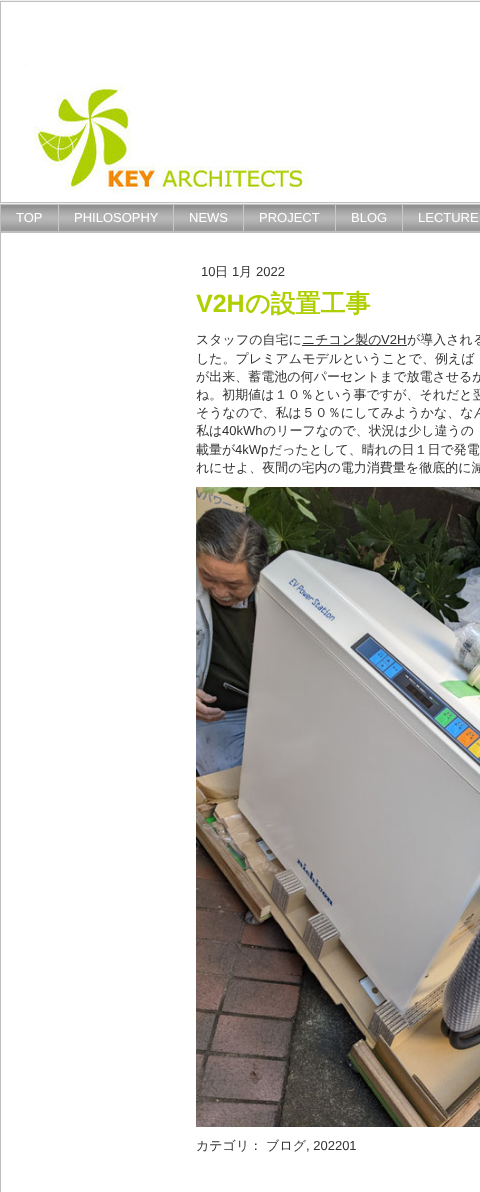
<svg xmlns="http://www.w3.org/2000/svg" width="480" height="1192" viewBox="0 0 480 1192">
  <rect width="100%" height="100%" fill="#f0f0f0"/>
  <rect x="0.5" y="1.5" width="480" height="201" fill="none" stroke="#bebebe"/>
  <image x="1" y="2" width="479" height="200" href="img1.png"/>
  <rect x="1" y="205" width="479" height="3" fill="#929292"/>
  <image x="1" y="208" width="479" height="23" href="img2.png"/>
  <rect x="0.5" y="204.5" width="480" height="27" fill="none" stroke="#bebebe"/>
  <rect x="58" y="205" width="1" height="26" fill="#c8c8c8"/>
  <text x="16" y="222" font-family="Liberation Sans" font-size="13" fill="#ffffff">TOP</text>
  <rect x="173" y="205" width="1" height="26" fill="#c8c8c8"/>
  <text x="74" y="222" font-family="Liberation Sans" font-size="13" fill="#ffffff">PHILOSOPHY</text>
  <rect x="243" y="205" width="1" height="26" fill="#c8c8c8"/>
  <text x="189" y="222" font-family="Liberation Sans" font-size="13" fill="#ffffff">NEWS</text>
  <rect x="335" y="205" width="1" height="26" fill="#c8c8c8"/>
  <text x="259" y="222" font-family="Liberation Sans" font-size="13" fill="#ffffff">PROJECT</text>
  <rect x="402" y="205" width="1" height="26" fill="#c8c8c8"/>
  <text x="351" y="222" font-family="Liberation Sans" font-size="13" fill="#ffffff">BLOG</text>
  <text x="418" y="222" font-family="Liberation Sans" font-size="13" fill="#ffffff">LECTURE</text>
  <rect x="0.5" y="232.5" width="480" height="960" fill="#ffffff" stroke="#bebebe"/>
  <text x="201" y="276" font-family="Liberation Sans" font-size="13" fill="#333333">10</text>
  <text x="215" y="276" font-family="WenQuanYi Zen Hei" font-size="13" font-weight="500" fill="#333333">日</text>
  <text x="232" y="276" font-family="Liberation Sans" font-size="13" fill="#333333">1</text>
  <text x="239" y="276" font-family="WenQuanYi Zen Hei" font-size="13" font-weight="500" fill="#333333">月</text>
  <text x="256" y="276" font-family="Liberation Sans" font-size="13" fill="#333333">2022</text>
  <text x="196" y="312" font-family="Liberation Sans" font-size="25" font-weight="bold" fill="#afcf00">V2H</text>
  <text x="245" y="312" font-family="WenQuanYi Zen Hei" font-size="25" font-weight="bold" fill="#afcf00">の設置工事</text>
  <text x="196" y="344" font-family="WenQuanYi Zen Hei" font-size="13" font-weight="500" fill="#333333">スタッフの自宅に</text>
  <rect x="302" y="345" width="105" height="1" fill="#333333"/>
  <text x="302" y="344" font-family="WenQuanYi Zen Hei" font-size="13" font-weight="500" fill="#333333">ニチコン製の</text>
  <text x="381" y="344" font-family="Liberation Sans" font-size="13" fill="#333333">V2H</text>
  <text x="407" y="344" font-family="WenQuanYi Zen Hei" font-size="13" font-weight="500" fill="#333333">が導入される</text>
  <text x="196" y="363" font-family="WenQuanYi Zen Hei" font-size="13" font-weight="500" fill="#333333">した。プレミアムモデルということで、例えば</text>
  <text x="196" y="381" font-family="WenQuanYi Zen Hei" font-size="13" font-weight="500" fill="#333333">が出来、蓄電池の何パーセントまで放電させるか</text>
  <text x="196" y="399" font-family="WenQuanYi Zen Hei" font-size="13" font-weight="500" fill="#333333">ね。初期値は１０％という事ですが、それだと翌</text>
  <text x="196" y="417" font-family="WenQuanYi Zen Hei" font-size="13" font-weight="500" fill="#333333">そうなので、私は５０％にしてみようかな、なん</text>
  <text x="196" y="435" font-family="WenQuanYi Zen Hei" font-size="13" font-weight="500" fill="#333333">私は</text>
  <text x="222" y="435" font-family="Liberation Sans" font-size="13" fill="#333333">40kWh</text>
  <text x="263" y="435" font-family="WenQuanYi Zen Hei" font-size="13" font-weight="500" fill="#333333">のリーフなので、状況は少し違うの</text>
  <text x="196" y="454" font-family="WenQuanYi Zen Hei" font-size="13" font-weight="500" fill="#333333">載量が</text>
  <text x="235" y="454" font-family="Liberation Sans" font-size="13" fill="#333333">4kWp</text>
  <text x="269" y="454" font-family="WenQuanYi Zen Hei" font-size="13" font-weight="500" fill="#333333">だったとして、晴れの日１日で発電</text>
  <text x="196" y="472" font-family="WenQuanYi Zen Hei" font-size="13" font-weight="500" fill="#333333">れにせよ、夜間の宅内の電力消費量を徹底的に減</text>
  <image x="196" y="487" width="284" height="640" href="img3.png"/>
  <text x="196" y="1150" font-family="WenQuanYi Zen Hei" font-size="13" font-weight="500" fill="#333333">カテゴリ： ブログ</text>
  <text x="306" y="1150" font-family="Liberation Sans" font-size="13" fill="#333333">, 202201</text>
</svg>
